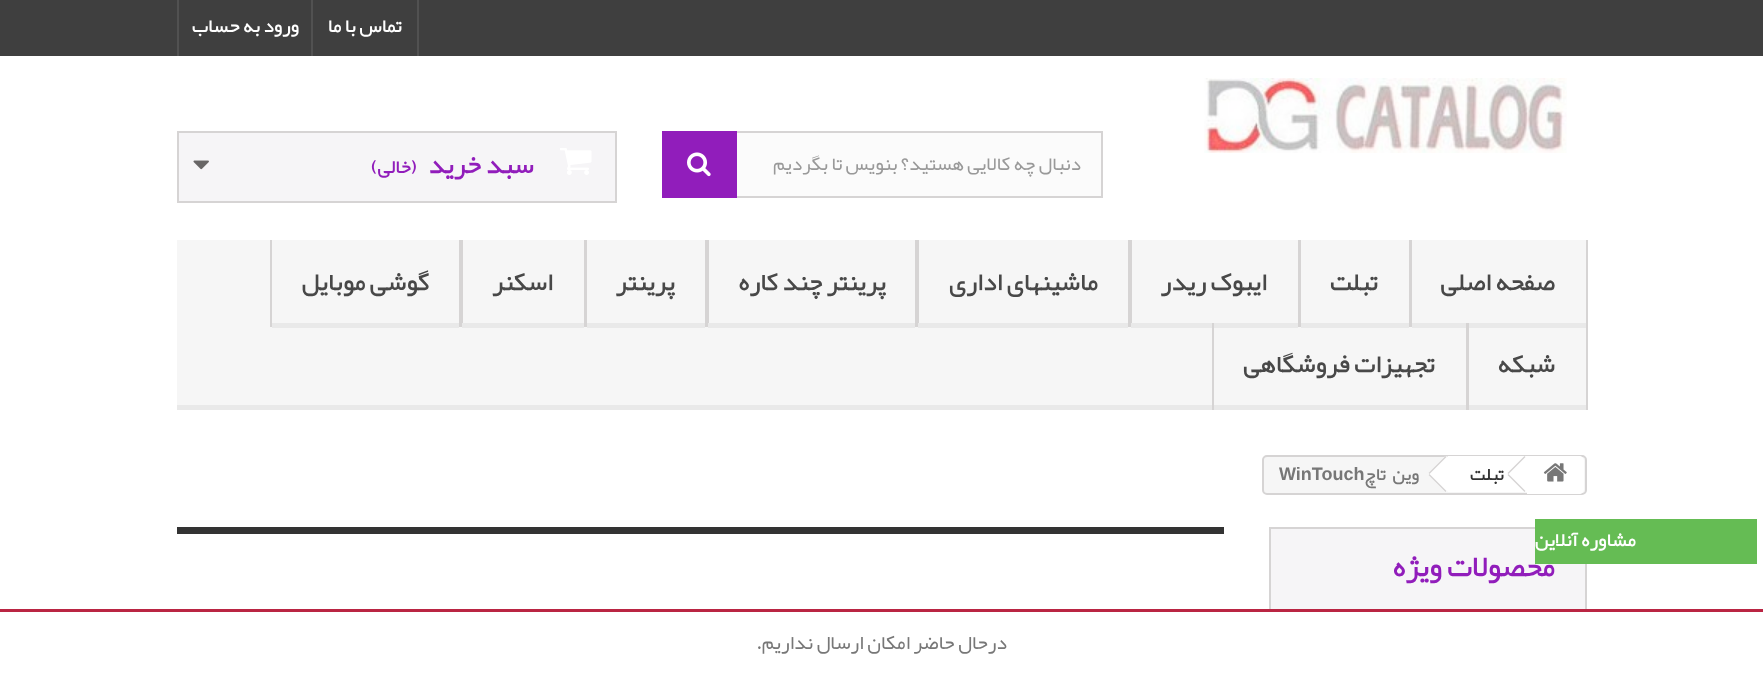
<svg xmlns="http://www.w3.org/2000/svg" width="1763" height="684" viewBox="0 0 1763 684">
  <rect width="100%" height="100%" fill="#ffffff"/>
  <rect x="0" y="0" width="1763" height="56" fill="#3f3f3f"/>
  <rect x="417" y="0" width="2" height="56" fill="#515151"/>
  <text x="402" y="32" font-family="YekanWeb" font-size="19.5" font-weight="bold" direction="rtl" fill="#ffffff">تماس با ما</text>
  <rect x="311" y="0" width="2" height="56" fill="#515151"/>
  <rect x="177" y="0" width="2" height="56" fill="#515151"/>
  <text x="299" y="32" font-family="YekanWeb" font-size="19.5" font-weight="bold" direction="rtl" fill="#ffffff">ورود به حساب</text>
  <image x="1204" y="78" width="363" height="75" href="img1.png"/>
  <rect x="737" y="133" width="364" height="63" fill="#fbfbfb"/>
  <rect x="663" y="132" width="439" height="65" fill="none" stroke="#d6d4d4" stroke-width="2"/>
  <text x="1081" y="170" font-family="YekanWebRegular" font-size="19.5" direction="rtl" fill="#999999">دنبال چه کالایی هستید؟ بنویس تا بگردیم</text>
  <rect x="662" y="131" width="75" height="67" fill="#911dbb"/>
  <image x="687" y="152" width="24" height="25" href="img2.png"/>
  <rect x="178" y="132" width="438" height="70" fill="#f6f5f7" stroke="#d6d4d4" stroke-width="2"/>
  <image x="560" y="148" width="32" height="27" href="img3.png"/>
  <text x="534" y="173" font-family="YekanWeb" font-size="27" font-weight="bold" direction="rtl" fill="#911dbb">سبد خرید</text>
  <text x="417" y="173" font-family="YekanWeb" font-size="19.5" font-weight="bold" direction="rtl" fill="#911dbb">(خالی)</text>
  <image x="193" y="160" width="16" height="10" href="img4.png"/>
  <rect x="177" y="240" width="1409" height="165" fill="#f6f6f6"/>
  <rect x="177" y="405" width="1410" height="5" fill="#e9e9e9"/>
  <rect x="1586" y="240" width="2" height="170" fill="#d6d4d4"/>
  <rect x="1409" y="240" width="3" height="87" fill="#d6d4d4"/>
  <rect x="1412" y="323" width="174" height="5" fill="#e9e9e9"/>
  <text x="1555" y="290" font-family="YekanWeb" font-size="25.5" font-weight="bold" direction="rtl" fill="#484848">صفحه اصلی</text>
  <rect x="1298" y="240" width="3" height="87" fill="#d6d4d4"/>
  <rect x="1301" y="323" width="108" height="5" fill="#e9e9e9"/>
  <text x="1378" y="290" font-family="YekanWeb" font-size="25.5" font-weight="bold" direction="rtl" fill="#484848">تبلت</text>
  <rect x="1128" y="240" width="4" height="87" fill="#d6d4d4"/>
  <rect x="1131" y="323" width="167" height="5" fill="#e9e9e9"/>
  <text x="1267" y="290" font-family="YekanWeb" font-size="25.5" font-weight="bold" direction="rtl" fill="#484848">ایبوک ریدر</text>
  <rect x="915" y="240" width="4" height="87" fill="#d6d4d4"/>
  <rect x="918" y="323" width="210" height="5" fill="#e9e9e9"/>
  <text x="1098" y="290" font-family="YekanWeb" font-size="25.5" font-weight="bold" direction="rtl" fill="#484848">ماشینهای اداری</text>
  <rect x="705" y="240" width="4" height="87" fill="#d6d4d4"/>
  <rect x="708" y="323" width="207" height="5" fill="#e9e9e9"/>
  <text x="886" y="290" font-family="YekanWeb" font-size="25.5" font-weight="bold" direction="rtl" fill="#484848">پرینتر چند کاره</text>
  <rect x="584" y="240" width="3" height="87" fill="#d6d4d4"/>
  <rect x="587" y="323" width="118" height="5" fill="#e9e9e9"/>
  <text x="675" y="290" font-family="YekanWeb" font-size="25.5" font-weight="bold" direction="rtl" fill="#484848">پرینتر</text>
  <rect x="459" y="240" width="4" height="87" fill="#d6d4d4"/>
  <rect x="462" y="323" width="122" height="5" fill="#e9e9e9"/>
  <text x="553" y="290" font-family="YekanWeb" font-size="25.5" font-weight="bold" direction="rtl" fill="#484848">اسکنر</text>
  <rect x="270" y="240" width="2" height="87" fill="#d6d4d4"/>
  <rect x="272" y="323" width="187" height="5" fill="#e9e9e9"/>
  <text x="429" y="290" font-family="YekanWeb" font-size="25.5" font-weight="bold" direction="rtl" fill="#484848">گوشی موبایل</text>
  <rect x="1466" y="323" width="3" height="87" fill="#d6d4d4"/>
  <text x="1555" y="372" font-family="YekanWeb" font-size="25.5" font-weight="bold" direction="rtl" fill="#484848">شبکه</text>
  <rect x="1212" y="323" width="2" height="87" fill="#d6d4d4"/>
  <text x="1435" y="372" font-family="YekanWeb" font-size="25.5" font-weight="bold" direction="rtl" fill="#484848">تجهیزات فروشگاهی</text>
  <rect x="1271" y="529" width="314" height="80" fill="#f6f5f7"/>
  <rect x="1270" y="528" width="316" height="83" fill="none" stroke="#d6d4d4" stroke-width="2"/>
  <text x="1555" y="576" font-family="YekanWeb" font-size="30" font-weight="bold" direction="rtl" fill="#911dbb">محصولات ویژه</text>
  <rect x="1535" y="519" width="222" height="45" fill="#65bc54"/>
  <text x="1636" y="546" font-family="YekanWeb" font-size="19.5" font-weight="bold" direction="rtl" fill="#ffffff">مشاوره آنلاین</text>
  <rect x="1263" y="456" width="323" height="38" rx="4" fill="#f6f6f6" stroke="#d6d4d4" stroke-width="2"/>
  <path d="M1527 456H1579C1582 456 1584 458 1584 461V489C1584 492 1582 494 1579 494H1527Z" fill="#ffffff"/>
  <image x="1543" y="463" width="24" height="19" href="img5.png"/>
  <rect x="1448" y="456" width="79" height="36" fill="#ffffff"/>
  <path d="M1507.5 473L1524.5 456L1525.5 457L1508.5 474ZM1507.5 475L1508.5 474L1525.5 491L1524.5 492Z" fill="#d6d4d4"/>
  <text x="1504" y="480" font-family="YekanWeb" font-size="18" font-weight="bold" direction="rtl" fill="#333333">تبلت</text>
  <path d="M1429.5 472L1444 457C1445.5 456 1447.5 456 1448.5 457L1463.5 472C1464.5 473 1464.5 475 1463.5 476L1448.5 491C1447.5 492 1445.5 492 1444 491L1429.5 476C1428 475 1428 473 1429.5 472Z" fill="#ffffff"/>
  <path d="M1428.5 473L1445.5 456L1446.5 457L1429.5 474ZM1428.5 475L1429.5 474L1446.5 491L1445.5 492Z" fill="#d6d4d4"/>
  <text x="1419" y="480" font-family="YekanWeb" font-size="18" font-weight="bold" direction="rtl" fill="#777777">وین</text>
  <text x="1386" y="480" font-family="YekanWeb" font-size="18" font-weight="bold" direction="rtl" fill="#777777">تاچ</text>
  <text x="1279" y="480" font-family="Liberation Sans" font-size="18" font-weight="bold" fill="#777777">WinTouch</text>
  <rect x="177" y="527" width="1047" height="7" fill="#333333"/>
  <image x="177" y="534" width="1047" height="75" href="img6.png"/>
  <rect x="0" y="609" width="1763" height="3" fill="#ba2543"/>
  <text x="1007" y="649" font-family="YekanWebRegular" font-size="20" direction="rtl" fill="#777777">درحال حاضر امکان ارسال نداریم.</text>
</svg>
